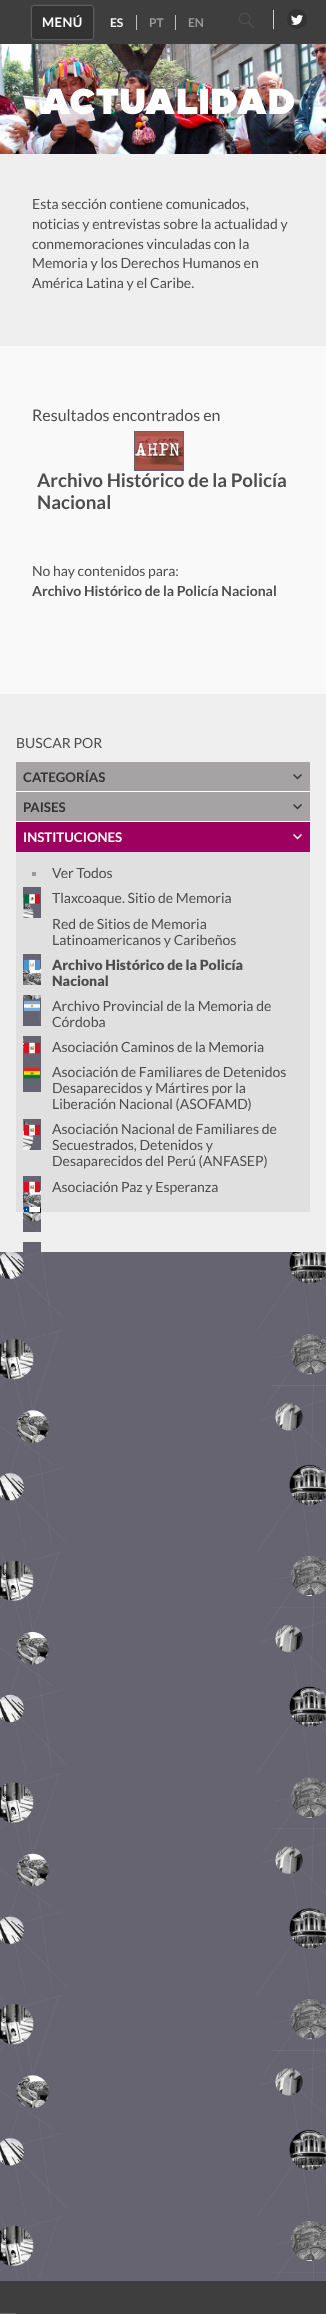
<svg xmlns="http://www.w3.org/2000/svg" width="326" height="2314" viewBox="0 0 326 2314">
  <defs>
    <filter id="blur1" x="-50%" y="-200%" width="200%" height="500%"><feGaussianBlur stdDeviation="1"/></filter>
  </defs>
  <rect width="100%" height="100%" fill="#ffffff"/>
  <image x="0" y="1252" width="326" height="1062" href="img1.png"/>
  <rect x="0" y="0" width="326" height="44" fill="#3e3e3e"/>
  <rect x="32" y="6" width="61" height="33" rx="2" fill="#999999" filter="url(#blur1)"/>
  <rect x="32" y="6" width="61" height="33" rx="2" fill="#333333"/>
  <text x="42" y="27" font-family="Lato" font-size="13" font-weight="bold" letter-spacing="0.5" fill="#ffffff">MENÚ</text>
  <rect x="136" y="15" width="1" height="15" fill="#bfbfbf"/>
  <text x="110" y="27" font-family="Lato" font-size="12" font-weight="bold" fill="#f5f5f5">ES</text>
  <rect x="175" y="15" width="1" height="15" fill="#bfbfbf"/>
  <text x="149" y="27" font-family="Lato" font-size="12" font-weight="bold" fill="#999999">PT</text>
  <text x="188" y="27" font-family="Lato" font-size="12" font-weight="bold" fill="#999999">EN</text>
  <image x="238" y="12" width="16" height="16" href="img2.png"/>
  <rect x="273" y="10" width="1" height="19" fill="#cccccc"/>
  <circle cx="297" cy="19" r="10" fill="#333333"/>
  <image x="291" y="15" width="12" height="10" href="img3.png"/>
  <rect x="0" y="346" width="326" height="348" fill="#f9f9f9"/>
  <image x="0" y="44" width="326" height="110" href="img4.png"/>
  <text x="40" y="114" font-family="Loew" font-size="36" font-weight="900" fill="#ffffff">ACTUALIDAD</text>
  <rect x="0" y="154" width="326" height="192" fill="#efefef"/>
  <text x="32" y="209" font-family="Lato" font-size="14" fill="#4d4d4d">Esta sección contiene comunicados,</text>
  <text x="32" y="229" font-family="Lato" font-size="14" fill="#4d4d4d">noticias y entrevistas sobre la actualidad y</text>
  <text x="32" y="249" font-family="Lato" font-size="14" fill="#4d4d4d">conmemoraciones vinculadas con la</text>
  <text x="32" y="268" font-family="Lato" font-size="14" fill="#4d4d4d">Memoria y los Derechos Humanos en</text>
  <text x="32" y="288" font-family="Lato" font-size="14" fill="#4d4d4d">América Latina y el Caribe.</text>
  <text x="32" y="421" font-family="Lato" font-size="16" fill="#4d4d4d">Resultados encontrados en</text>
  <image x="134" y="431" width="50" height="40" href="img5.png"/>
  <text x="37" y="487" font-family="Lato" font-size="18.75" font-weight="bold" fill="#4d4d4d">Archivo Histórico de la Policía</text>
  <text x="37" y="509" font-family="Lato" font-size="18.75" font-weight="bold" fill="#4d4d4d">Nacional</text>
  <text x="32" y="576" font-family="Lato" font-size="14" fill="#4d4d4d">No hay contenidos para:</text>
  <text x="32" y="596" font-family="Lato" font-size="14" font-weight="bold" fill="#4d4d4d">Archivo Histórico de la Policía Nacional</text>
  <rect x="0" y="694" width="326" height="558" fill="#efefef"/>
  <text x="16" y="748" font-family="Lato" font-size="14" fill="#4d4d4d">BUSCAR POR</text>
  <rect x="16" y="762" width="294" height="29" fill="#a5a3a3"/>
  <text x="23" y="782" font-family="Lato" font-size="13.25" font-weight="bold" fill="#333333">CATEGORÍAS</text>
  <image x="293" y="774" width="9" height="6" href="img6.png"/>
  <rect x="16" y="791" width="294" height="1" fill="#ffffff"/>
  <rect x="16" y="792" width="294" height="29" fill="#a5a3a3"/>
  <text x="23" y="812" font-family="Lato" font-size="13.25" font-weight="bold" fill="#333333">PAISES</text>
  <image x="293" y="804" width="9" height="6" href="img6.png"/>
  <rect x="16" y="821" width="294" height="1" fill="#ffffff"/>
  <rect x="16" y="822" width="294" height="30" fill="#9e005f"/>
  <text x="23" y="842" font-family="Lato" font-size="13.25" font-weight="bold" fill="#ffffff">INSTITUCIONES</text>
  <image x="293" y="834" width="9" height="6" href="img7.png"/>
  <rect x="16" y="852" width="294" height="360" fill="#e0e0e0"/>
  <rect x="32" y="872" width="4" height="4" fill="#999999"/>
  <text x="52" y="878" font-family="Lato" font-size="14" fill="#4d4d4d">Ver Todos</text>
  <image x="23" y="887" width="18" height="31" href="img8.png"/>
  <text x="52" y="903" font-family="Lato" font-size="14" fill="#4d4d4d">Tlaxcoaque. Sitio de Memoria</text>
  <text x="52" y="929" font-family="Lato" font-size="14" fill="#4d4d4d">Red de Sitios de Memoria</text>
  <text x="52" y="945" font-family="Lato" font-size="14" fill="#4d4d4d">Latinoamericanos y Caribeños</text>
  <image x="23" y="954" width="18" height="31" href="img9.png"/>
  <text x="52" y="970" font-family="Lato" font-size="14" font-weight="900" fill="#4d4d4d">Archivo Histórico de la Policía</text>
  <text x="52" y="986" font-family="Lato" font-size="14" font-weight="900" fill="#4d4d4d">Nacional</text>
  <image x="23" y="995" width="18" height="31" href="img10.png"/>
  <text x="52" y="1011" font-family="Lato" font-size="14" fill="#4d4d4d">Archivo Provincial de la Memoria de</text>
  <text x="52" y="1027" font-family="Lato" font-size="14" fill="#4d4d4d">Córdoba</text>
  <image x="23" y="1036" width="18" height="31" href="img11.png"/>
  <text x="52" y="1052" font-family="Lato" font-size="14" fill="#4d4d4d">Asociación Caminos de la Memoria</text>
  <image x="23" y="1067" width="18" height="25" href="img12.png"/>
  <text x="52" y="1077" font-family="Lato" font-size="14" fill="#4d4d4d">Asociación de Familiares de Detenidos</text>
  <text x="52" y="1093" font-family="Lato" font-size="14" fill="#4d4d4d">Desaparecidos y Mártires por la</text>
  <text x="52" y="1109" font-family="Lato" font-size="14" fill="#4d4d4d">Liberación Nacional (ASOFAMD)</text>
  <image x="23" y="1119" width="18" height="31" href="img13.png"/>
  <text x="52" y="1134" font-family="Lato" font-size="14" fill="#4d4d4d">Asociación Nacional de Familiares de</text>
  <text x="52" y="1150" font-family="Lato" font-size="14" fill="#4d4d4d">Secuestrados, Detenidos y</text>
  <text x="52" y="1166" font-family="Lato" font-size="14" fill="#4d4d4d">Desaparecidos del Perú (ANFASEP)</text>
  <image x="23" y="1176" width="18" height="30" href="img14.png"/>
  <text x="52" y="1192" font-family="Lato" font-size="14" fill="#4d4d4d">Asociación Paz y Esperanza</text>
  <image x="23" y="1206" width="18" height="26" href="img15.png"/>
  <rect x="23" y="1242" width="18" height="10" fill="#666471"/>
  <rect x="0" y="2281" width="326" height="32" fill="#3e3e3e"/>
  <rect x="16" y="2313" width="310" height="1" fill="#3e3e3e"/>
</svg>
